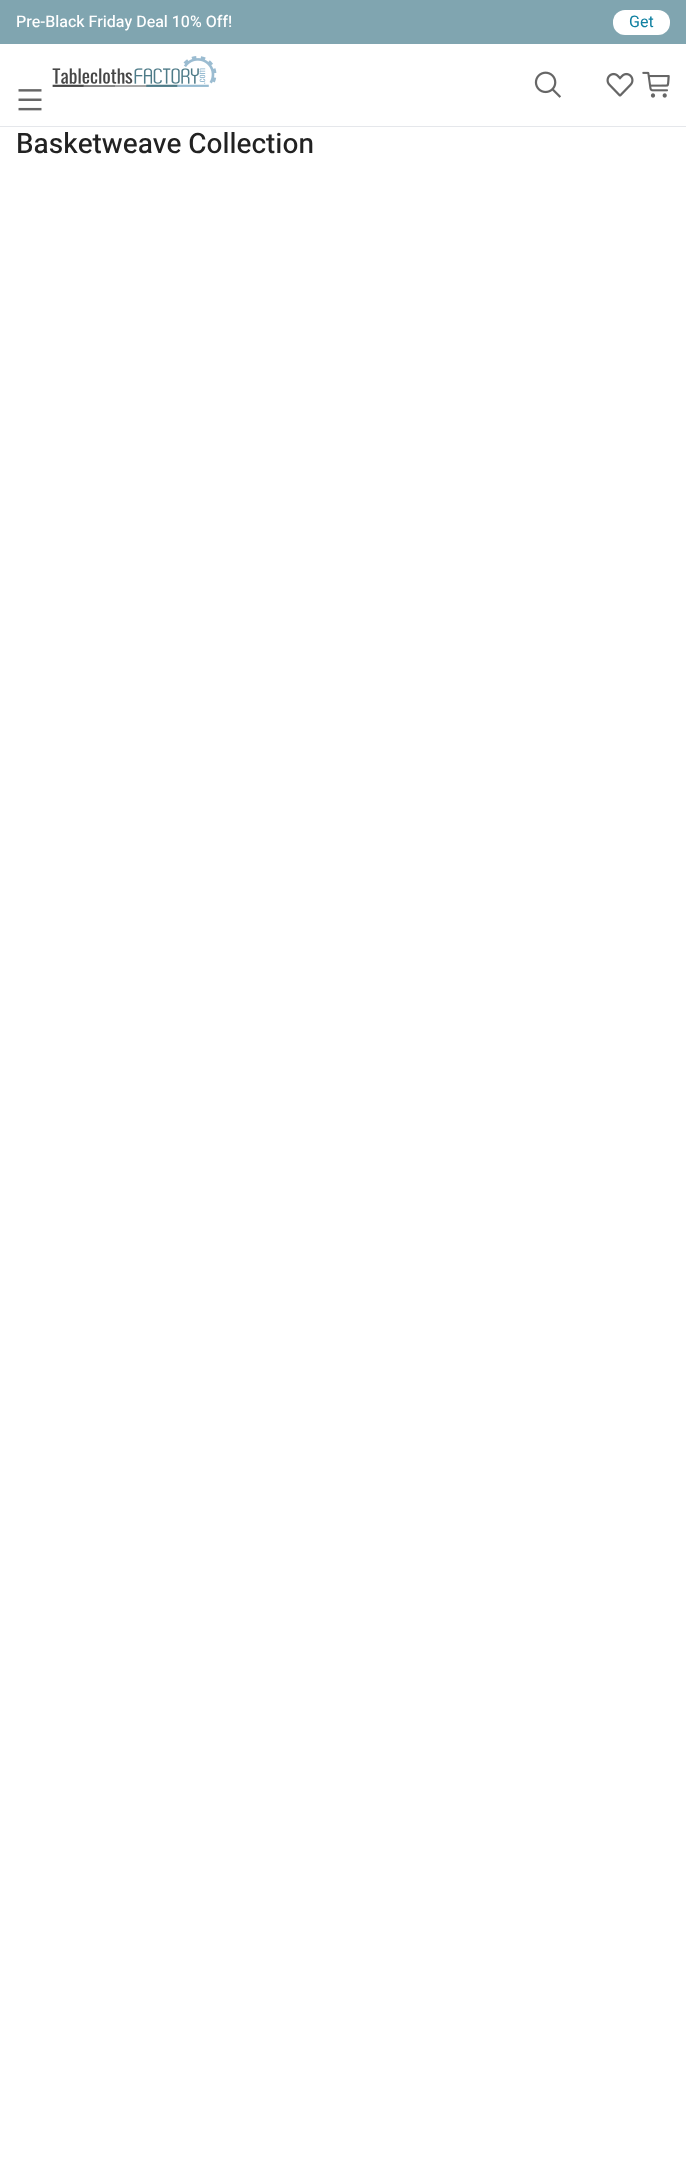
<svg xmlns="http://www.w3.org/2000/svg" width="686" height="2165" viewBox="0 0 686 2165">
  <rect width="100%" height="100%" fill="#ffffff"/>
  <rect x="0" y="126" width="686" height="1" fill="#e5e7eb"/>
  <rect x="0" y="0" width="686" height="44" fill="#80a5b0"/>
  <text x="16" y="27" font-family="Heebo" font-size="16" font-weight="500" fill="#ffffff">Pre-Black Friday Deal 10% Off!</text>
  <rect x="613" y="10" width="57" height="25" rx="12" fill="#ffffff"/>
  <text x="629" y="27" font-family="Heebo" font-size="16" fill="#1080a1">Get</text>
  <image x="52" y="56" width="165" height="31" href="img1.png"/>
  <image x="18" y="89" width="24" height="22" href="img2.png"/>
  <image x="534" y="71" width="27" height="27" href="img3.png"/>
  <image x="606" y="72" width="28" height="25" href="img4.png"/>
  <image x="642" y="71" width="28" height="27" href="img5.png"/>
  <text x="16" y="153" font-family="Heebo" font-size="28" font-weight="500" fill="#222222">Basketweave Collection</text>
</svg>
